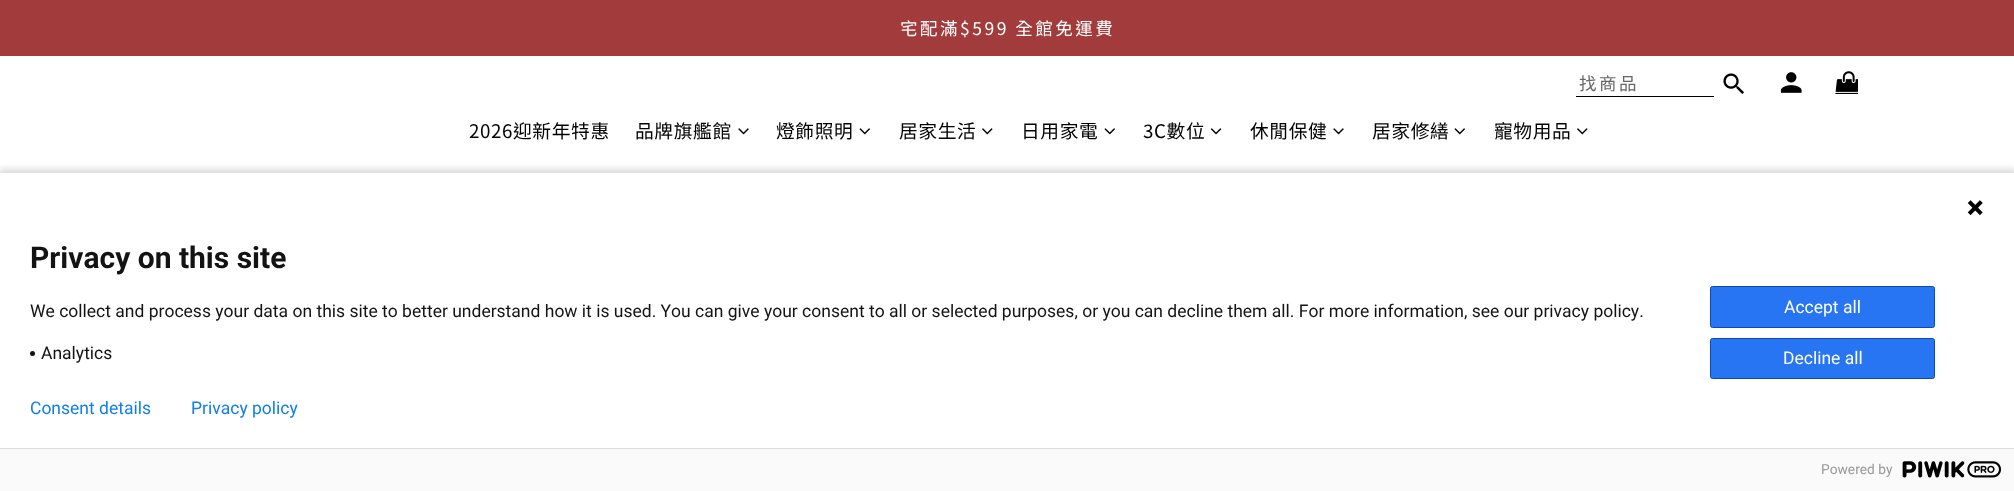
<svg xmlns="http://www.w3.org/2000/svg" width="2014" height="491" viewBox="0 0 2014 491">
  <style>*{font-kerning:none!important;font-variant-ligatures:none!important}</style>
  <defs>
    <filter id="blur1" x="-50%" y="-200%" width="200%" height="500%"><feGaussianBlur stdDeviation="3"/></filter>
  </defs>
  <rect width="100%" height="100%" fill="#a23b3b"/>
  <text x="900" y="35" font-family="Noto Sans TC" font-size="17.5" letter-spacing="2.5" fill="#ffffff">宅配滿$599 全館免運費</text>
  <rect x="0" y="56" width="2014" height="117" fill="#ffffff"/>
  <rect x="1576" y="96" width="138" height="1" fill="#000000"/>
  <text x="1579" y="90" font-family="Noto Sans TC" font-size="17.5" letter-spacing="2.5" fill="#666666">找商品</text>
  <image x="1723" y="73" width="21" height="21" href="img1.png"/>
  <image x="1780" y="72" width="22" height="21" href="img2.png"/>
  <image x="1835" y="71" width="23" height="23" href="img3.png"/>
  <text x="469" y="138" font-family="Noto Sans TC" font-size="18.75" letter-spacing="0.6" fill="#000000">2026迎新年特惠</text>
  <text x="635" y="138" font-family="Noto Sans TC" font-size="18.75" letter-spacing="0.6" fill="#000000">品牌旗艦館</text>
  <image x="738" y="128" width="11" height="7" href="img4.png"/>
  <text x="776" y="138" font-family="Noto Sans TC" font-size="18.75" letter-spacing="0.6" fill="#000000">燈飾照明</text>
  <image x="859" y="128" width="11" height="7" href="img5.png"/>
  <text x="899" y="138" font-family="Noto Sans TC" font-size="18.75" letter-spacing="0.6" fill="#000000">居家生活</text>
  <image x="982" y="128" width="11" height="7" href="img6.png"/>
  <text x="1021" y="138" font-family="Noto Sans TC" font-size="18.75" letter-spacing="0.6" fill="#000000">日用家電</text>
  <image x="1104" y="128" width="11" height="7" href="img5.png"/>
  <text x="1143" y="138" font-family="Noto Sans TC" font-size="18.75" letter-spacing="0.6" fill="#000000">3C數位</text>
  <image x="1210" y="128" width="12" height="7" href="img7.png"/>
  <text x="1250" y="138" font-family="Noto Sans TC" font-size="18.75" letter-spacing="0.6" fill="#000000">休閒保健</text>
  <image x="1333" y="128" width="11" height="7" href="img4.png"/>
  <text x="1372" y="138" font-family="Noto Sans TC" font-size="18.75" letter-spacing="0.6" fill="#000000">居家修繕</text>
  <image x="1454" y="128" width="11" height="7" href="img5.png"/>
  <text x="1494" y="138" font-family="Noto Sans TC" font-size="18.75" letter-spacing="0.6" fill="#000000">寵物用品</text>
  <image x="1577" y="128" width="11" height="7" href="img6.png"/>
  <rect x="-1" y="169" width="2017" height="321" fill="#000000" fill-opacity="0.14" filter="url(#blur1)"/>
  <rect x="0" y="173" width="2014" height="275" fill="#ffffff"/>
  <image x="1967" y="200" width="16" height="16" href="img8.png"/>
  <text x="30" y="268" font-family="Roboto" font-size="30" font-weight="bold" fill="#131313">Privacy on this site</text>
  <text x="30" y="317" font-family="Roboto" font-size="17.5" fill="#131313">We collect and process your data on this site to better understand how it is used. You can give your consent to all or selected purposes, or you can decline them all. For more information, see our privacy policy.</text>
  <circle cx="32.5" cy="353.5" r="2.5" fill="#131313"/>
  <text x="41" y="359" font-family="Roboto" font-size="17.5" fill="#131313">Analytics</text>
  <rect x="1710.5" y="286.5" width="224" height="41" rx="2" fill="#2775f2" stroke="#0b4bb3"/>
  <text x="1784" y="313" font-family="Roboto" font-size="17.5" fill="#ffffff">Accept all</text>
  <rect x="1710.5" y="338.5" width="224" height="40" rx="2" fill="#2775f2" stroke="#0b4bb3"/>
  <text x="1783" y="364" font-family="Roboto" font-size="17.5" fill="#ffffff">Decline all</text>
  <text x="30" y="414" font-family="Roboto" font-size="17.5" fill="#107ef1">Consent details</text>
  <text x="191" y="414" font-family="Roboto" font-size="17.5" fill="#107ef1">Privacy policy</text>
  <rect x="0" y="449" width="2014" height="42" fill="#fafafa"/>
  <rect x="0" y="448" width="2014" height="1" fill="#dddddd"/>
  <text x="1821" y="474" font-family="Roboto" font-size="13.75" fill="#999999">Powered by</text>
  <image x="1902" y="461" width="99" height="17" href="img9.png"/>
</svg>
